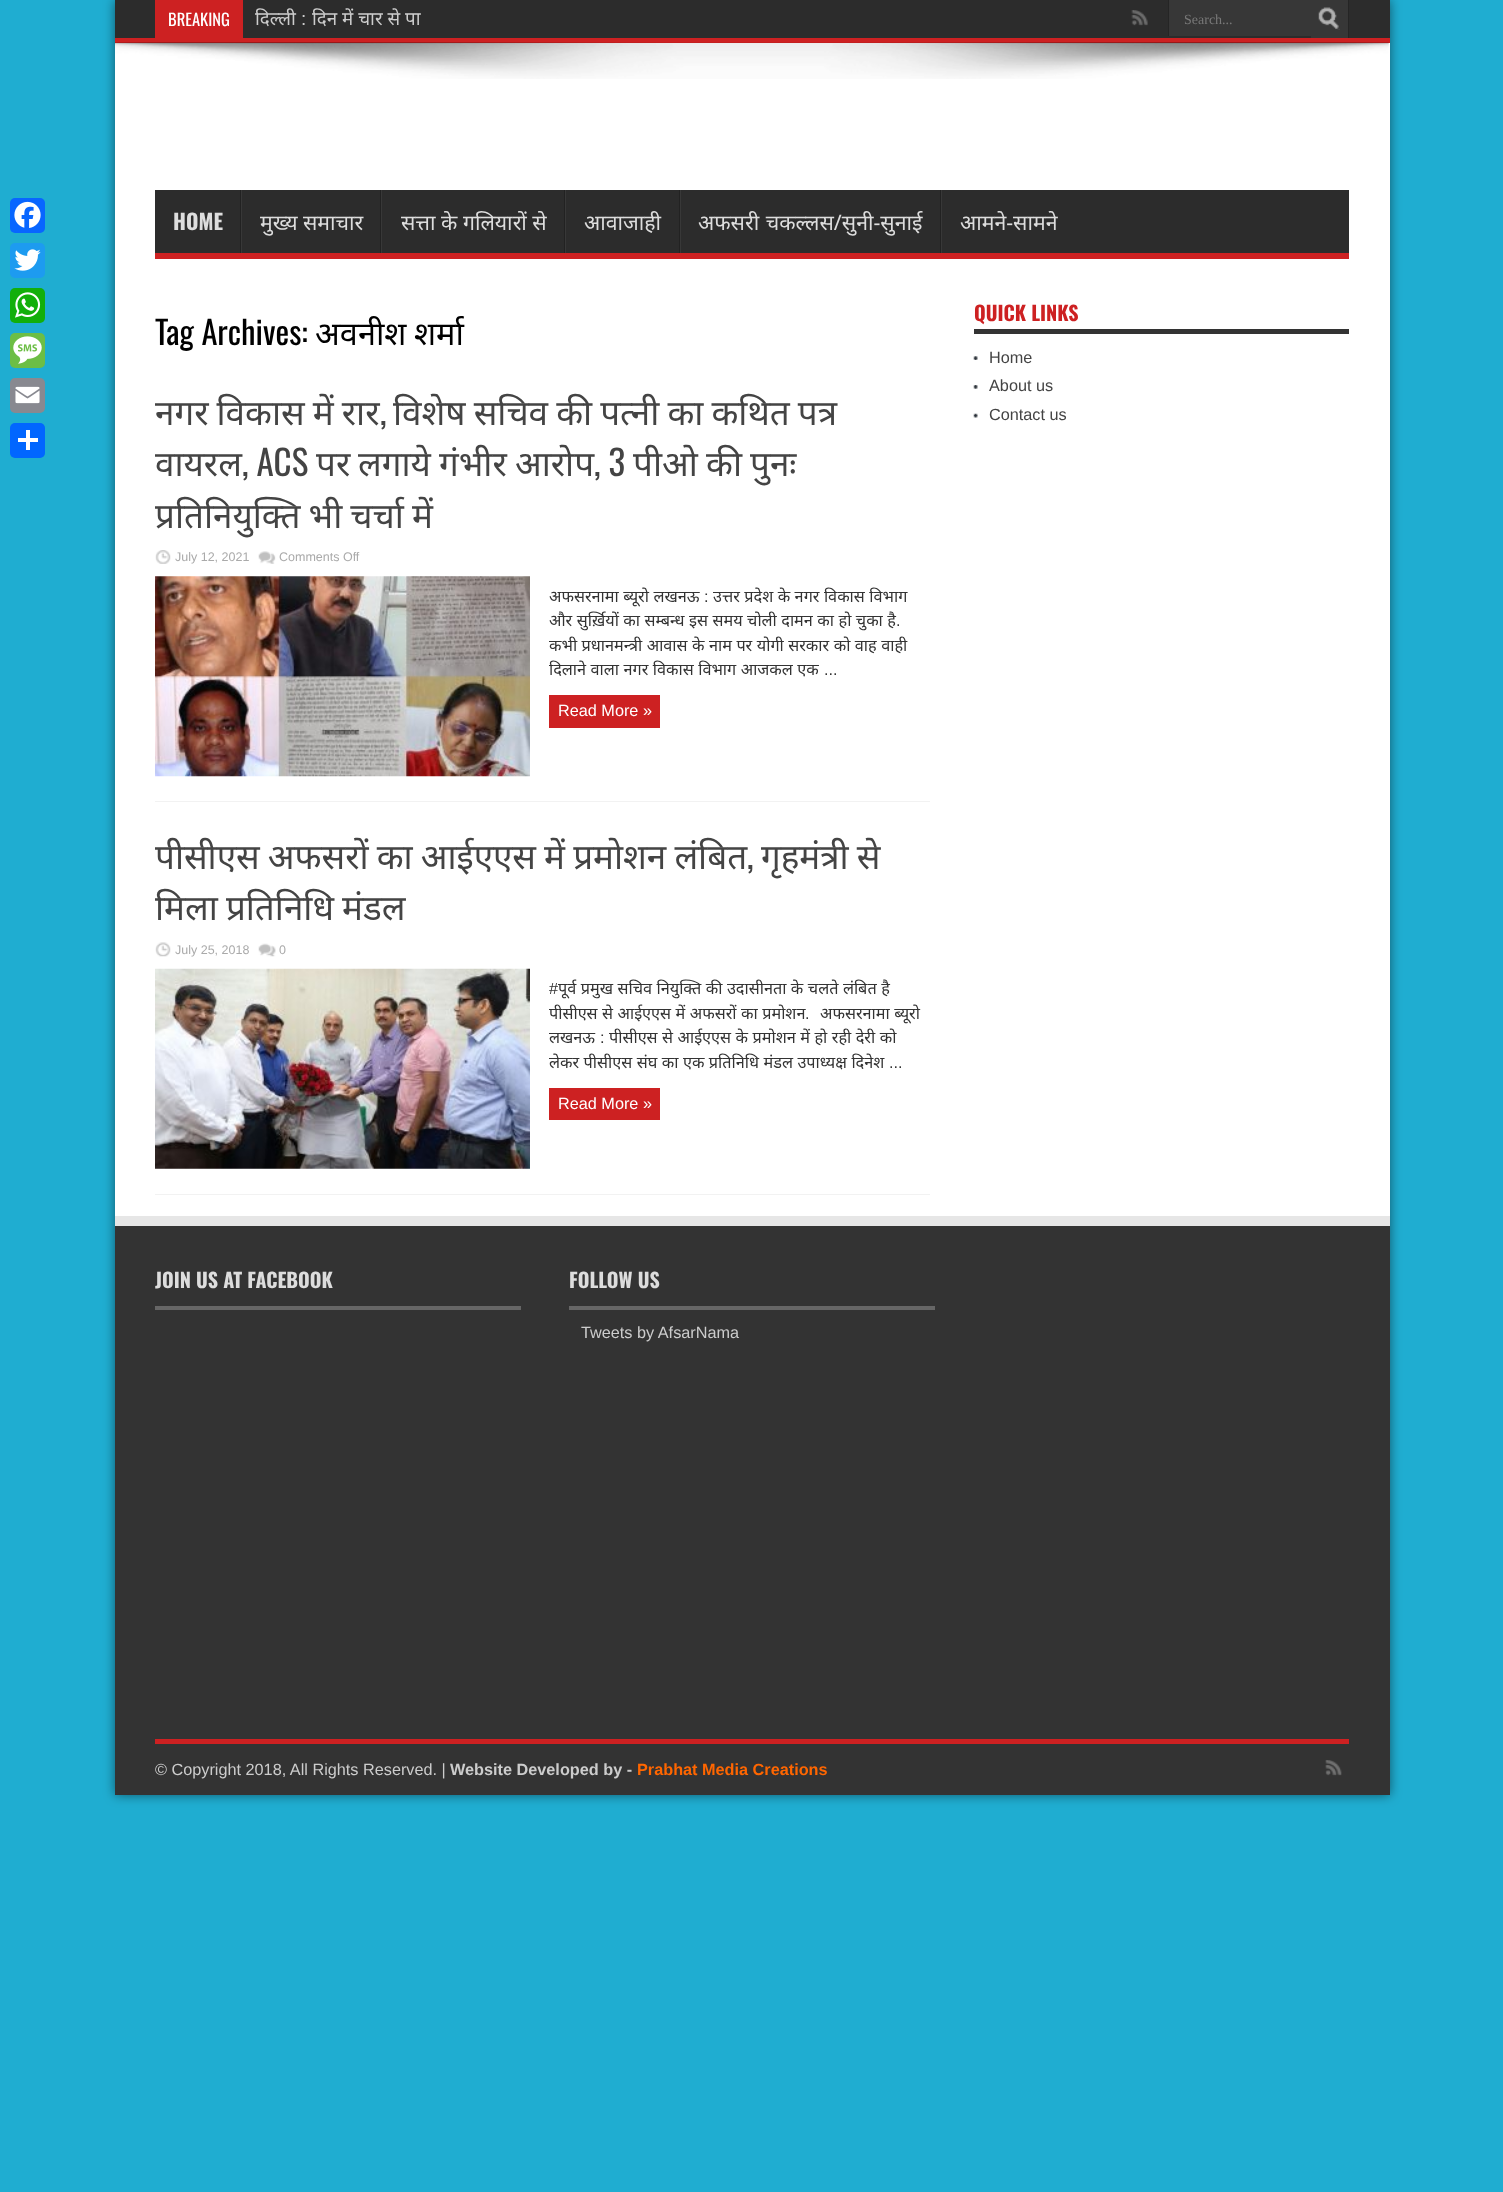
<svg xmlns="http://www.w3.org/2000/svg" width="1503" height="2192" viewBox="0 0 1503 2192">
  <defs>
    <filter id="blur1" x="-50%" y="-200%" width="200%" height="500%"><feGaussianBlur stdDeviation="6"/></filter>
    <clipPath id="clip1"><rect x="155" y="803" width="775" height="391"/></clipPath>
  </defs>
  <rect width="100%" height="100%" fill="#1fadd1"/>
  <rect x="10" y="198" width="35" height="35" rx="5" fill="#0866ff"/>
  <image x="14" y="201" width="27" height="27" href="img1.png"/>
  <rect x="10" y="243" width="35" height="35" rx="5" fill="#1d9bf0"/>
  <image x="14" y="249" width="27" height="22" href="img2.png"/>
  <rect x="10" y="288" width="35" height="35" rx="5" fill="#12af0a"/>
  <image x="15" y="292" width="26" height="26" href="img3.png"/>
  <rect x="10" y="333" width="35" height="35" rx="5" fill="#6cbe45"/>
  <image x="13" y="336" width="29" height="28" href="img4.png"/>
  <rect x="10" y="378" width="35" height="35" rx="5" fill="#888990"/>
  <image x="15" y="386" width="25" height="18" href="img5.png"/>
  <rect x="10" y="423" width="35" height="35" rx="5" fill="#0166ff"/>
  <rect x="26" y="430" width="4" height="20" fill="#ffffff"/>
  <rect x="18" y="438" width="20" height="4" fill="#ffffff"/>
  <rect x="115" y="0" width="1275" height="1795" fill="#000000" fill-opacity="0.5" filter="url(#blur1)"/>
  <rect x="115" y="43" width="1275" height="1173" fill="#ffffff"/>
  <rect x="115" y="0" width="1275" height="38" fill="#2c2c2c"/>
  <rect x="115" y="38" width="1275" height="5" fill="#cd2122"/>
  <rect x="155" y="0" width="88" height="38" fill="#cd2122"/>
  <text x="168" y="26" font-family="Oswald" font-size="16.5" fill="#ffffff">BREAKING</text>
  <text x="255" y="25" font-family="Noto Sans" font-size="18.75" fill="#cccccc">दिल्ली</text>
  <text x="301" y="25" font-family="Liberation Sans" font-size="18.75" fill="#cccccc">:</text>
  <text x="312" y="25" font-family="Noto Sans" font-size="18.75" fill="#cccccc">दिन में चार से पा</text>
  <image x="1131" y="10" width="17" height="16" href="img6.png"/>
  <rect x="1169" y="0" width="142" height="36" fill="#373737"/>
  <rect x="1168" y="0" width="1" height="36" fill="#252525"/>
  <text x="1184" y="24" font-family="Liberation Serif" font-size="14" fill="#787878">Search...</text>
  <rect x="1311" y="0" width="37" height="38" fill="#373737"/>
  <image x="1318" y="7" width="22" height="23" href="img7.png"/>
  <rect x="1348" y="0" width="1" height="38" fill="#252525"/>
  <image x="115" y="42" width="1274" height="37" href="img8.png"/>
  <rect x="155" y="190" width="1194" height="63" fill="#2c2c2c"/>
  <rect x="155" y="253" width="1194" height="6" fill="#cd2122"/>
  <text x="173" y="230" font-family="Oswald" font-size="21.25" font-weight="bold" fill="#dddddd">HOME</text>
  <rect x="240" y="190" width="1" height="63" fill="#222222"/>
  <rect x="241" y="190" width="1" height="63" fill="#383838"/>
  <text x="260" y="230" font-family="Noto Sans" font-size="21.25" fill="#dddddd">मुख्य समाचार</text>
  <rect x="380" y="190" width="1" height="63" fill="#222222"/>
  <rect x="381" y="190" width="1" height="63" fill="#383838"/>
  <text x="401" y="230" font-family="Noto Sans" font-size="21.25" fill="#dddddd">सत्ता के गलियारों से</text>
  <rect x="564" y="190" width="1" height="63" fill="#222222"/>
  <rect x="565" y="190" width="1" height="63" fill="#383838"/>
  <text x="584" y="230" font-family="Noto Sans" font-size="21.25" fill="#dddddd">आवाजाही</text>
  <rect x="679" y="190" width="1" height="63" fill="#222222"/>
  <rect x="680" y="190" width="1" height="63" fill="#383838"/>
  <text x="698" y="230" word-spacing="1" font-family="Noto Sans" font-size="21.25" fill="#dddddd">अफसरी चकल्लस/सुनी-सुनाई</text>
  <rect x="940" y="190" width="1" height="63" fill="#222222"/>
  <rect x="941" y="190" width="1" height="63" fill="#383838"/>
  <text x="960" y="230" font-family="Noto Sans" font-size="21.25" fill="#dddddd">आमने-सामने</text>
  <text x="155" y="345" font-family="Oswald" font-size="32.5" fill="#000000">Tag Archives:</text>
  <text x="315" y="345" word-spacing="-1" font-family="Noto Sans" font-size="32.5" fill="#000000">अवनीश शर्मा</text>
  <rect x="155" y="801" width="775" height="1" fill="#f2f2f2"/>
  <text x="155" y="425" word-spacing="-1" font-family="Noto Sans" font-size="35" fill="#444444">नगर विकास में रार</text>
  <text x="380" y="425" font-family="Oswald" font-size="35" fill="#444444">,</text>
  <text x="393" y="425" word-spacing="-1" font-family="Noto Sans" font-size="35" fill="#444444">विशेष सचिव की पत्नी का कथित पत्र</text>
  <text x="155" y="476" font-family="Noto Sans" font-size="35" fill="#444444">वायरल</text>
  <text x="242" y="476" font-family="Oswald" font-size="35" fill="#444444">, ACS</text>
  <text x="316" y="476" font-family="Noto Sans" font-size="35" fill="#444444">पर</text>
  <text x="358" y="476" font-family="Noto Sans" font-size="35" fill="#444444">लगाये</text>
  <text x="439" y="476" font-family="Noto Sans" font-size="35" fill="#444444">गंभीर</text>
  <text x="515" y="476" font-family="Noto Sans" font-size="35" fill="#444444">आरोप</text>
  <text x="594" y="476" font-family="Oswald" font-size="35" fill="#444444">, 3</text>
  <text x="633" y="476" font-family="Noto Sans" font-size="35" fill="#444444">पीओ</text>
  <text x="706" y="476" font-family="Noto Sans" font-size="35" fill="#444444">की</text>
  <text x="750" y="476" font-family="Noto Sans" font-size="35" fill="#444444">पुनः</text>
  <text x="155" y="528" word-spacing="-1" font-family="Noto Sans" font-size="35" fill="#444444">प्रतिनियुक्ति भी चर्चा में</text>
  <image x="155" y="550" width="16" height="14" href="img9.png"/>
  <text x="175" y="561" font-family="Liberation Sans" font-size="12.5" fill="#aaaaaa">July 12, 2021</text>
  <image x="258" y="551" width="18" height="13" href="img10.png"/>
  <text x="279" y="561" font-family="Liberation Sans" font-size="12.5" fill="#aaaaaa">Comments Off</text>
  <image x="155" y="576" width="375" height="201" href="img11.png"/>
  <text x="549" y="602" word-spacing="0.25" font-family="Noto Sans" font-size="16.25" fill="#333333">अफसरनामा ब्यूरो लखनऊ</text>
  <text x="704" y="602" font-family="Liberation Sans" font-size="16.25" fill="#333333">:</text>
  <text x="713" y="602" word-spacing="0.25" font-family="Noto Sans" font-size="16.25" fill="#333333">उत्तर प्रदेश के नगर विकास विभाग</text>
  <text x="549" y="626" word-spacing="0.25" font-family="Noto Sans" font-size="16.25" fill="#333333">और सुर्ख़ियों का सम्बन्ध इस समय चोली दामन का हो चुका है</text>
  <text x="896" y="626" font-family="Liberation Sans" font-size="16.25" fill="#333333">.</text>
  <text x="549" y="651" word-spacing="0.25" font-family="Noto Sans" font-size="16.25" fill="#333333">कभी प्रधानमन्त्री आवास के नाम पर योगी सरकार को वाह वाही</text>
  <text x="549" y="675" word-spacing="0.25" font-family="Noto Sans" font-size="16.25" fill="#333333">दिलाने वाला नगर विकास विभाग आजकल एक</text>
  <text x="824" y="675" font-family="Liberation Sans" font-size="16.25" fill="#333333">...</text>
  <rect x="549" y="695" width="111" height="33" fill="#cd2122"/>
  <text x="558" y="716" font-family="Liberation Sans" font-size="16.25" fill="#ffffff">Read More »</text>
  <rect x="155" y="1194" width="775" height="1" fill="#f2f2f2"/>
  <g clip-path="url(#clip1)">
    <text x="155" y="869" word-spacing="-1" font-family="Noto Sans" font-size="35" fill="#444444">पीसीएस अफसरों का आईएएस में प्रमोशन लंबित</text>
  </g>
  <text x="747" y="869" font-family="Oswald" font-size="35" fill="#444444">,</text>
  <text x="761" y="869" word-spacing="-1" font-family="Noto Sans" font-size="35" fill="#444444">गृहमंत्री से</text>
  <text x="155" y="920" word-spacing="-1" font-family="Noto Sans" font-size="35" fill="#444444">मिला प्रतिनिधि मंडल</text>
  <image x="155" y="942" width="16" height="15" href="img12.png"/>
  <text x="175" y="954" font-family="Liberation Sans" font-size="12.5" fill="#aaaaaa">July 25, 2018</text>
  <image x="258" y="943" width="18" height="14" href="img13.png"/>
  <text x="279" y="954" font-family="Liberation Sans" font-size="12.5" fill="#aaaaaa">0</text>
  <image x="155" y="968" width="375" height="201" href="img14.png"/>
  <text x="549" y="994" font-family="Liberation Sans" font-size="16.25" fill="#333333">#</text>
  <text x="558" y="994" word-spacing="0.25" font-family="Noto Sans" font-size="16.25" fill="#333333">पूर्व प्रमुख सचिव नियुक्ति की उदासीनता के चलते लंबित है</text>
  <text x="549" y="1019" word-spacing="0.25" font-family="Noto Sans" font-size="16.25" fill="#333333">पीसीएस से आईएएस में अफसरों का प्रमोशन</text>
  <text x="805" y="1019" font-family="Liberation Sans" font-size="16.25" fill="#333333">.</text>
  <text x="820" y="1019" word-spacing="0.25" font-family="Noto Sans" font-size="16.25" fill="#333333">अफसरनामा ब्यूरो</text>
  <text x="549" y="1043" font-family="Noto Sans" font-size="16.25" fill="#333333">लखनऊ</text>
  <text x="600" y="1043" font-family="Liberation Sans" font-size="16.25" fill="#333333">:</text>
  <text x="609" y="1043" word-spacing="0.25" font-family="Noto Sans" font-size="16.25" fill="#333333">पीसीएस से आईएएस के प्रमोशन में हो रही देरी को</text>
  <text x="549" y="1068" word-spacing="0.25" font-family="Noto Sans" font-size="16.25" fill="#333333">लेकर पीसीएस संघ का एक प्रतिनिधि मंडल उपाध्यक्ष दिनेश</text>
  <text x="889" y="1068" font-family="Liberation Sans" font-size="16.25" fill="#333333">...</text>
  <rect x="549" y="1088" width="111" height="32" fill="#cd2122"/>
  <text x="558" y="1109" font-family="Liberation Sans" font-size="16.25" fill="#ffffff">Read More »</text>
  <rect x="974" y="329" width="375" height="5" fill="#333333"/>
  <text x="974" y="321" font-family="Oswald" font-size="20" font-weight="bold" fill="#cd2122">QUICK LINKS</text>
  <image x="973" y="356" width="5" height="4" href="img15.png"/>
  <text x="989" y="363" font-family="Liberation Sans" font-size="16.25" fill="#444444">Home</text>
  <image x="973" y="385" width="5" height="4" href="img16.png"/>
  <text x="989" y="391" font-family="Liberation Sans" font-size="16.25" fill="#444444">About us</text>
  <image x="973" y="413" width="5" height="5" href="img17.png"/>
  <text x="989" y="420" font-family="Liberation Sans" font-size="16.25" fill="#444444">Contact us</text>
  <rect x="115" y="1216" width="1275" height="10" fill="#e6e6e6"/>
  <rect x="115" y="1226" width="1275" height="569" fill="#333333"/>
  <rect x="155" y="1306" width="366" height="4" fill="#666666"/>
  <text x="155" y="1288" font-family="Oswald" font-size="20" font-weight="bold" fill="#dddddd">JOIN US AT FACEBOOK</text>
  <rect x="569" y="1306" width="366" height="4" fill="#666666"/>
  <text x="569" y="1288" font-family="Oswald" font-size="20" font-weight="bold" fill="#dddddd">FOLLOW US</text>
  <text x="581" y="1338" font-family="Liberation Sans" font-size="16.25" fill="#cccccc">Tweets by AfsarNama</text>
  <rect x="155" y="1739" width="1194" height="5" fill="#cd2122"/>
  <text x="155" y="1775" font-family="Liberation Sans" font-size="16.25" fill="#cccccc">© Copyright 2018, All Rights Reserved. |</text>
  <text x="450" y="1775" font-family="Liberation Sans" font-size="16.25" font-weight="bold" fill="#cccccc">Website Developed by -</text>
  <text x="637" y="1775" font-family="Liberation Sans" font-size="16.25" font-weight="bold" fill="#ff6600">Prabhat Media Creations</text>
  <image x="1325" y="1760" width="17" height="16" href="img18.png"/>
</svg>
